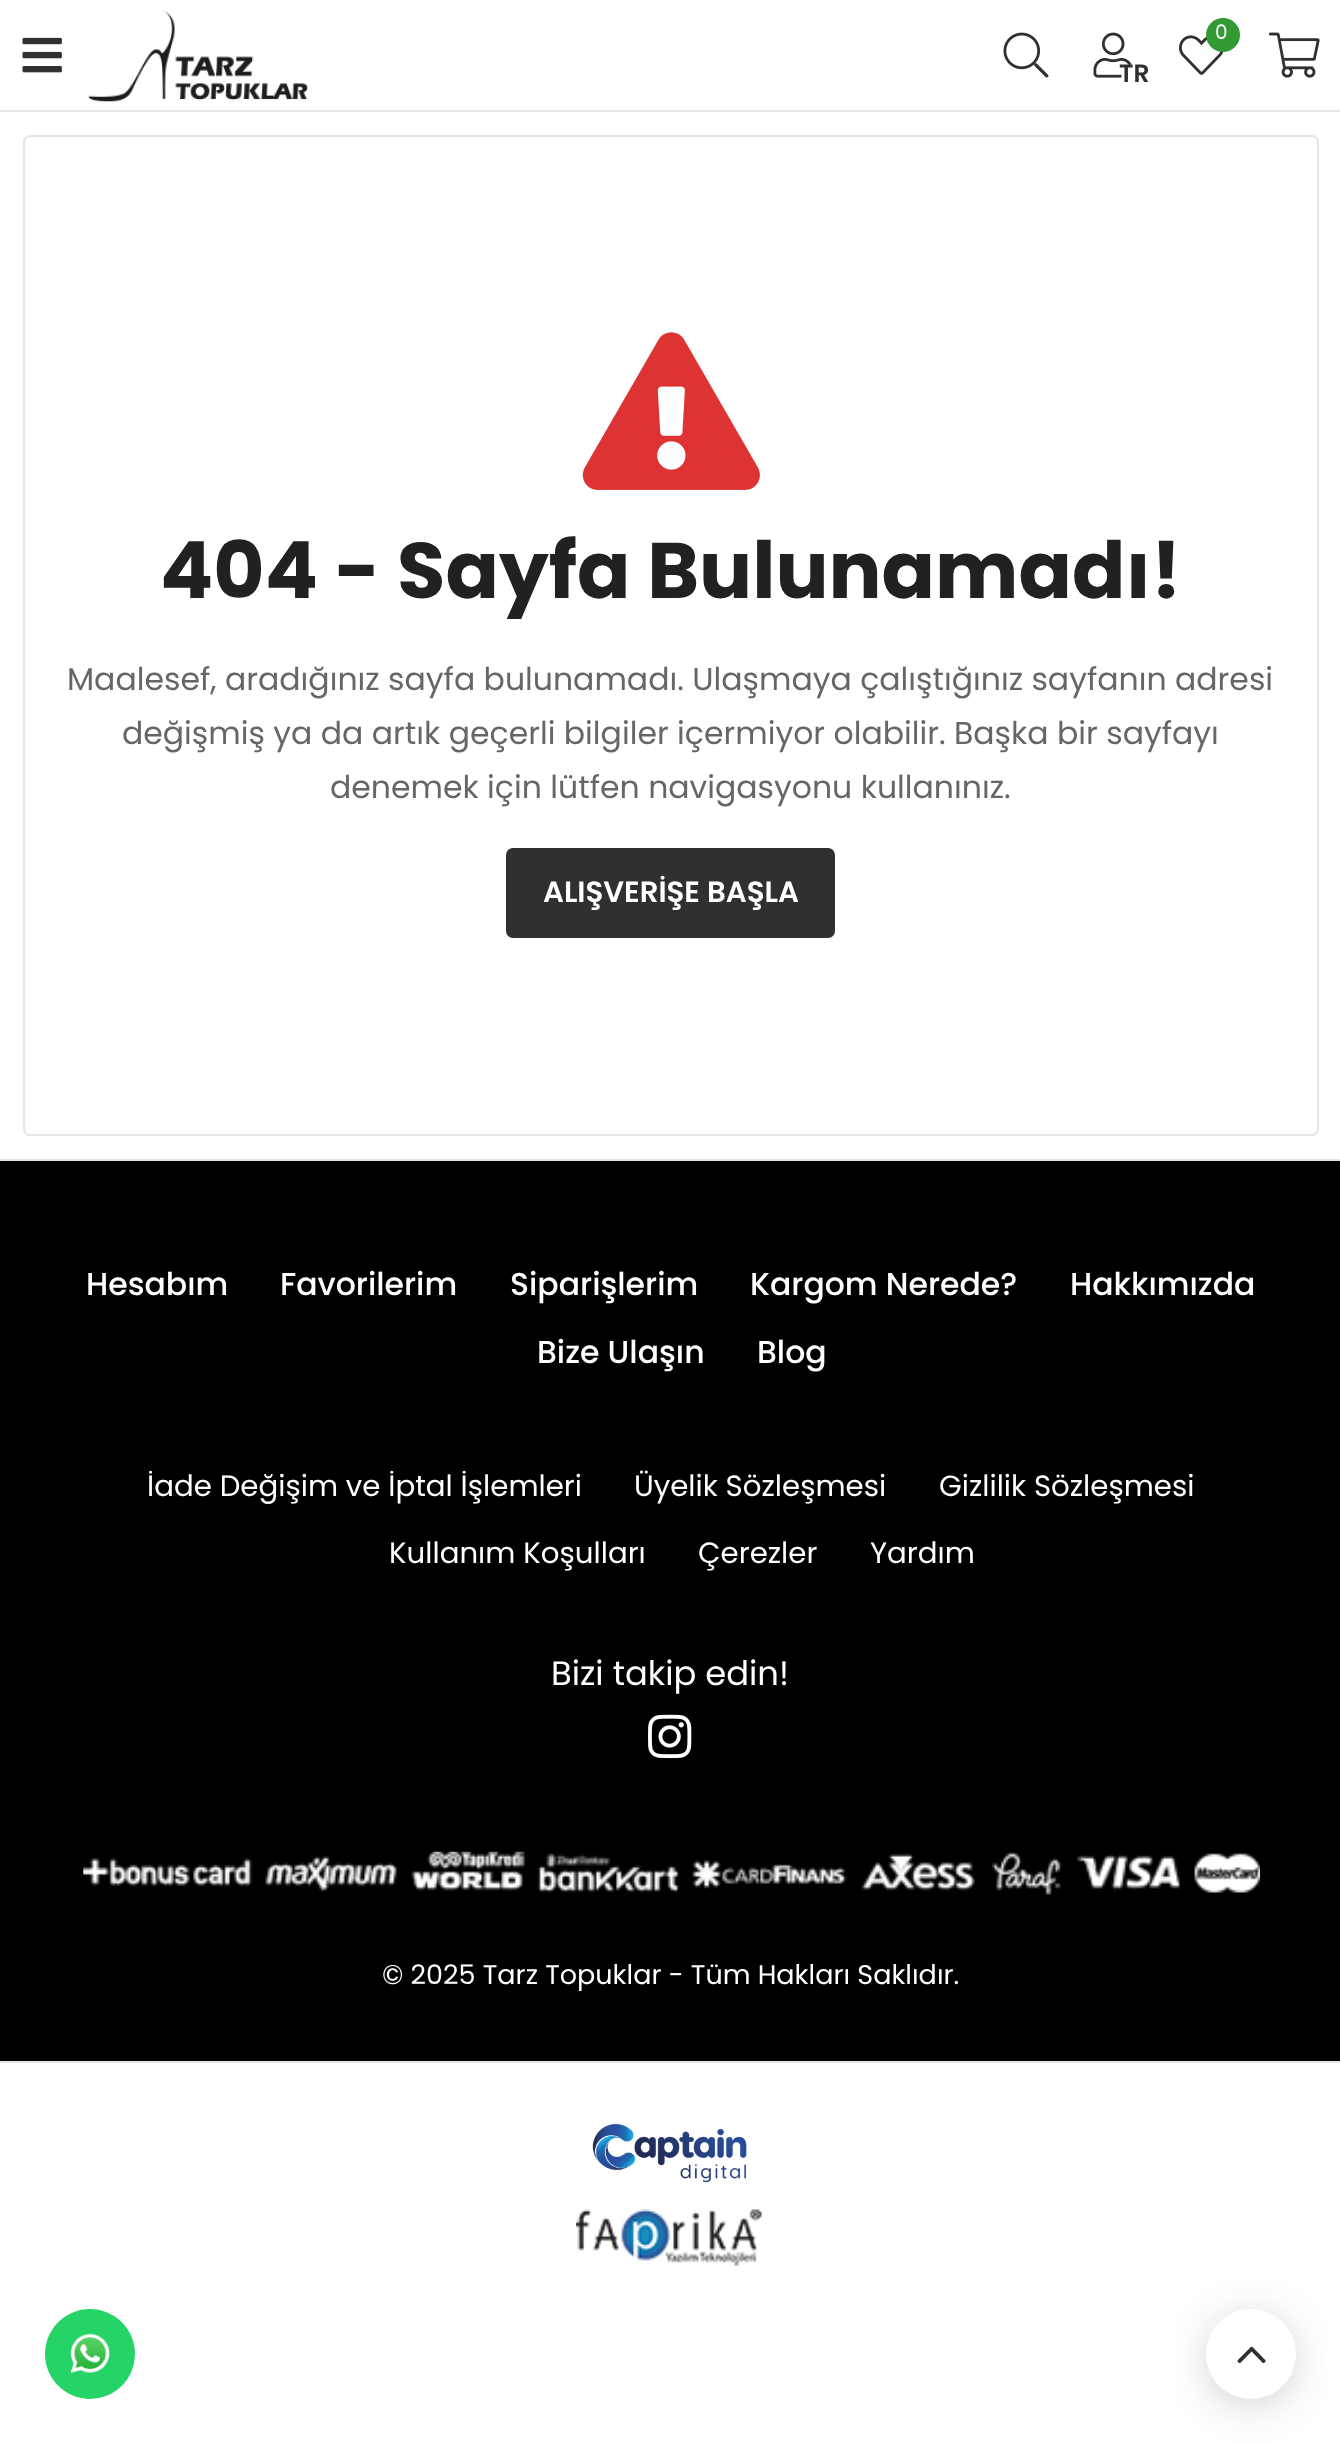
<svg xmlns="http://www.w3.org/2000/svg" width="1340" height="2442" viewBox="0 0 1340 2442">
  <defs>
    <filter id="blur1" x="-50%" y="-200%" width="200%" height="500%"><feGaussianBlur stdDeviation="22.5"/></filter>
  </defs>
  <rect width="100%" height="100%" fill="#ffffff"/>
  <rect x="0" y="110" width="1340" height="2" fill="#e2e6eb"/>
  <image x="22" y="37" width="40" height="36" href="img1.png"/>
  <image x="88" y="11" width="220" height="91" href="img2.png"/>
  <image x="1003" y="32" width="46" height="46" href="img3.png"/>
  <image x="1093" y="32" width="39" height="46" href="img4.png"/>
  <rect x="1121" y="63" width="33" height="34" rx="16.5" fill="#ffffff"/>
  <text x="1119" y="82" font-family="Poppins" font-size="25" font-weight="600" fill="#303030">TR</text>
  <image x="1179" y="35" width="45" height="40" href="img5.png"/>
  <circle cx="1223" cy="35" r="17" fill="#339933"/>
  <text x="1215" y="39" font-family="Poppins" font-size="20" fill="#ffffff">0</text>
  <image x="1269" y="32" width="51" height="46" href="img6.png"/>
  <rect x="24" y="136" width="1294" height="999" rx="6" fill="none" stroke="#e2e6eb" stroke-width="2"/>
  <image x="582" y="332" width="178" height="158" href="img7.png"/>
  <text x="160" y="598" font-family="Poppins" font-size="78.75" font-weight="bold" fill="#212121">404 - Sayfa Bulunamadı!</text>
  <text x="67" y="690" font-family="Poppins" font-size="31.5" fill="#666666">Maalesef, aradığınız sayfa bulunamadı. Ulaşmaya çalıştığınız sayfanın adresi</text>
  <text x="122" y="744" font-family="Poppins" font-size="31.5" fill="#666666">değişmiş ya da artık geçerli bilgiler içermiyor olabilir. Başka bir sayfayı</text>
  <text x="330" y="798" font-family="Poppins" font-size="31.5" fill="#666666">denemek için lütfen navigasyonu kullanınız.</text>
  <rect x="507" y="849" width="327" height="88" rx="6" fill="#303030" stroke="#303030" stroke-width="2"/>
  <text x="543" y="902" font-family="Poppins" font-size="29.25" font-weight="600" fill="#ffffff">ALIŞVERİŞE BAŞLA</text>
  <rect x="0" y="1161" width="1340" height="900" fill="#000000"/>
  <rect x="0" y="1159" width="1340" height="2" fill="#e2e6eb"/>
  <text x="86" y="1295" font-family="Poppins" font-size="31.5" font-weight="500" fill="#ffffff">Hesabım</text>
  <text x="280" y="1295" font-family="Poppins" font-size="31.5" font-weight="500" fill="#ffffff">Favorilerim</text>
  <text x="510" y="1295" font-family="Poppins" font-size="31.5" font-weight="500" fill="#ffffff">Siparişlerim</text>
  <text x="750" y="1295" font-family="Poppins" font-size="31.5" font-weight="500" fill="#ffffff">Kargom Nerede?</text>
  <text x="1070" y="1295" font-family="Poppins" font-size="31.5" font-weight="500" fill="#ffffff">Hakkımızda</text>
  <text x="537" y="1363" font-family="Poppins" font-size="31.5" font-weight="500" fill="#ffffff">Bize Ulaşın</text>
  <text x="757" y="1363" font-family="Poppins" font-size="31.5" font-weight="500" fill="#ffffff">Blog</text>
  <text x="147" y="1496" font-family="Poppins" font-size="29.25" fill="#ffffff">İade Değişim ve İptal İşlemleri</text>
  <text x="634" y="1496" font-family="Poppins" font-size="29.25" fill="#ffffff">Üyelik Sözleşmesi</text>
  <text x="939" y="1496" font-family="Poppins" font-size="29.25" fill="#ffffff">Gizlilik Sözleşmesi</text>
  <text x="389" y="1563" font-family="Poppins" font-size="29.25" fill="#ffffff">Kullanım Koşulları</text>
  <text x="698" y="1563" font-family="Poppins" font-size="29.25" fill="#ffffff">Çerezler</text>
  <text x="870" y="1563" font-family="Poppins" font-size="29.25" fill="#ffffff">Yardım</text>
  <text x="551" y="1685" font-family="Poppins" font-size="33.75" fill="#ffffff">Bizi takip edin!</text>
  <image x="648" y="1714" width="44" height="45" href="img8.png"/>
  <image x="83" y="1851" width="1177" height="44" href="img9.png"/>
  <text x="382" y="1984" font-family="Poppins" font-size="27" fill="#ffffff">© 2025 Tarz Topuklar - Tüm Hakları Saklıdır.</text>
  <rect x="1213" y="2322" width="76" height="77" rx="38" fill="#000000" fill-opacity="0.25" filter="url(#blur1)"/>
  <circle cx="1251" cy="2354" r="45" fill="#ffffff"/>
  <image x="1237" y="2346" width="29" height="18" href="img10.png"/>
  <rect x="0" y="2061" width="1340" height="2" fill="#e2e6eb"/>
  <image x="592" y="2123" width="155" height="60" href="img11.png"/>
  <image x="576" y="2209" width="186" height="57" href="img12.png"/>
  <circle cx="90" cy="2354" r="45" fill="#25d366"/>
  <image x="70" y="2333" width="40" height="41" href="img13.png"/>
</svg>
